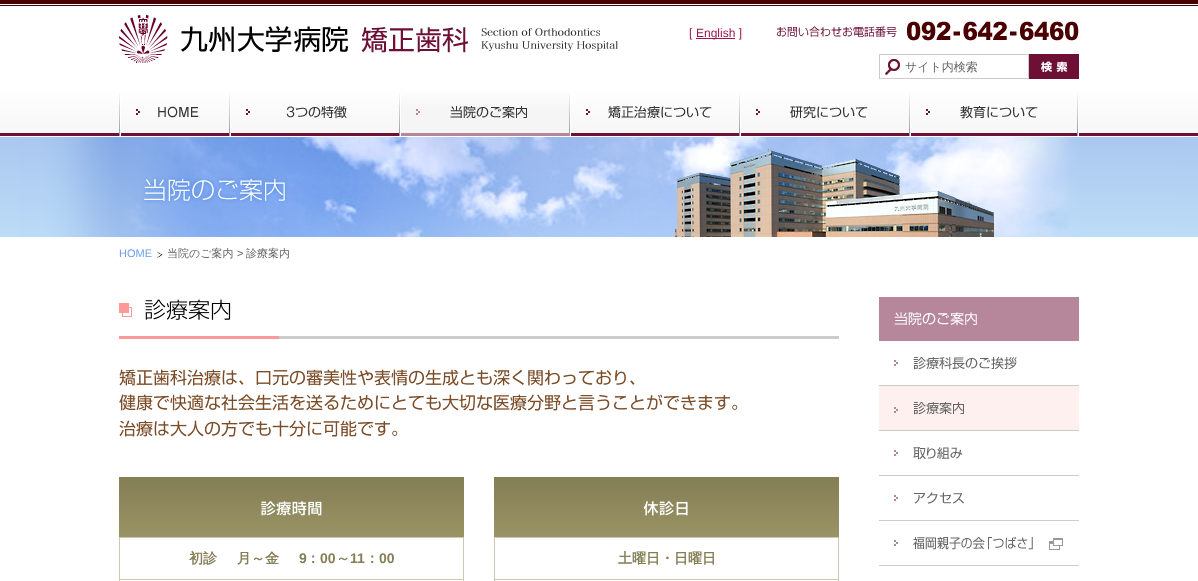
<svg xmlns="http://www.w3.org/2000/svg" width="1198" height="581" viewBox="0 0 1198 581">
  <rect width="100%" height="100%" fill="#ffffff"/>
  <image x="0" y="0" width="1198" height="237" href="img1.png"/>
  <image x="119" y="15" width="499" height="48" href="img2.png"/>
  <text x="689" y="37" font-family="Liberation Sans" font-size="12" fill="#9d174d">[</text>
  <rect x="696" y="38" width="39" height="1" fill="#9d174d"/>
  <text x="696" y="37" font-family="Liberation Sans" font-size="12" fill="#9d174d">English ]</text>
  <image x="776" y="21" width="303" height="20" href="img3.png"/>
  <image x="885" y="59" width="15" height="16" href="img4.png"/>
  <rect x="879.5" y="54.5" width="149" height="24" fill="none" stroke="#cccccc"/>
  <text x="905" y="71" font-family="WenQuanYi Zen Hei" font-size="12" font-weight="500" fill="#666666">サイト内検索</text>
  <image x="1029" y="54" width="50" height="25" href="img5.png"/>
  <image x="119" y="93" width="110" height="43" href="img6.png"/>
  <image x="229" y="93" width="170" height="43" href="img7.png"/>
  <image x="399" y="93" width="170" height="43" href="img8.png"/>
  <image x="569" y="93" width="170" height="43" href="img9.png"/>
  <image x="739" y="93" width="170" height="43" href="img10.png"/>
  <image x="909" y="93" width="170" height="43" href="img11.png"/>
  <image x="19" y="137" width="1161" height="100" href="img12.png"/>
  <image x="142" y="137" width="908" height="100" href="img13.png"/>
  <text x="119" y="257" font-family="Liberation Sans" font-size="11" fill="#6b9ced">HOME</text>
  <image x="157" y="251" width="6" height="7" href="img14.png"/>
  <text x="167" y="257" font-family="WenQuanYi Zen Hei" font-size="11" font-weight="500" fill="#666666">当院のご案内</text>
  <text x="237" y="257" font-family="Liberation Sans" font-size="11" fill="#666666">&gt;</text>
  <text x="246" y="257" font-family="WenQuanYi Zen Hei" font-size="11" font-weight="500" fill="#666666">診療案内</text>
  <image x="119" y="336" width="720" height="3" href="img15.png"/>
  <image x="119" y="299" width="112" height="21" href="img16.png"/>
  <image x="119" y="369" width="619" height="68" href="img17.png"/>
  <image x="119" y="477" width="345" height="60" href="img18.png"/>
  <rect x="119" y="537" width="345" height="1" fill="#ccc9b2"/>
  <rect x="119" y="579" width="345" height="1" fill="#ccc9b2"/>
  <rect x="463" y="579" width="1" height="2" fill="#ccc9b2"/>
  <rect x="463" y="537" width="1" height="43" fill="#ccc9b2"/>
  <rect x="119" y="579" width="1" height="2" fill="#ccc9b2"/>
  <rect x="119" y="537" width="1" height="43" fill="#ccc9b2"/>
  <text x="189" y="563" font-family="WenQuanYi Zen Hei" font-size="14" font-weight="bold" fill="#857f56">初診</text>
  <text x="237" y="563" font-family="WenQuanYi Zen Hei" font-size="14" font-weight="bold" fill="#857f56">月～金</text>
  <text x="299" y="563" font-family="Liberation Sans" font-size="14" font-weight="bold" fill="#857f56">9</text>
  <text x="306" y="563" font-family="WenQuanYi Zen Hei" font-size="14" font-weight="bold" fill="#857f56">：</text>
  <text x="320" y="563" font-family="Liberation Sans" font-size="14" font-weight="bold" fill="#857f56">00</text>
  <text x="336" y="563" font-family="WenQuanYi Zen Hei" font-size="14" font-weight="bold" fill="#857f56">～</text>
  <text x="350" y="563" font-family="Liberation Sans" font-size="14" font-weight="bold" fill="#857f56">11</text>
  <text x="365" y="563" font-family="WenQuanYi Zen Hei" font-size="14" font-weight="bold" fill="#857f56">：</text>
  <text x="379" y="563" font-family="Liberation Sans" font-size="14" font-weight="bold" fill="#857f56">00</text>
  <image x="494" y="477" width="345" height="60" href="img19.png"/>
  <rect x="494" y="537" width="345" height="1" fill="#ccc9b2"/>
  <rect x="494" y="579" width="345" height="1" fill="#ccc9b2"/>
  <rect x="838" y="579" width="1" height="2" fill="#ccc9b2"/>
  <rect x="838" y="537" width="1" height="43" fill="#ccc9b2"/>
  <rect x="494" y="579" width="1" height="2" fill="#ccc9b2"/>
  <rect x="494" y="537" width="1" height="43" fill="#ccc9b2"/>
  <text x="618" y="563" font-family="WenQuanYi Zen Hei" font-size="14" font-weight="bold" fill="#857f56">土曜日・日曜日</text>
  <image x="879" y="297" width="200" height="44" href="img20.png"/>
  <image x="879" y="357" width="200" height="29" href="img21.png"/>
  <image x="879" y="386" width="200" height="45" href="img22.png"/>
  <image x="879" y="447" width="200" height="29" href="img23.png"/>
  <image x="879" y="492" width="200" height="29" href="img24.png"/>
  <image x="879" y="536" width="200" height="30" href="img25.png"/>
</svg>
